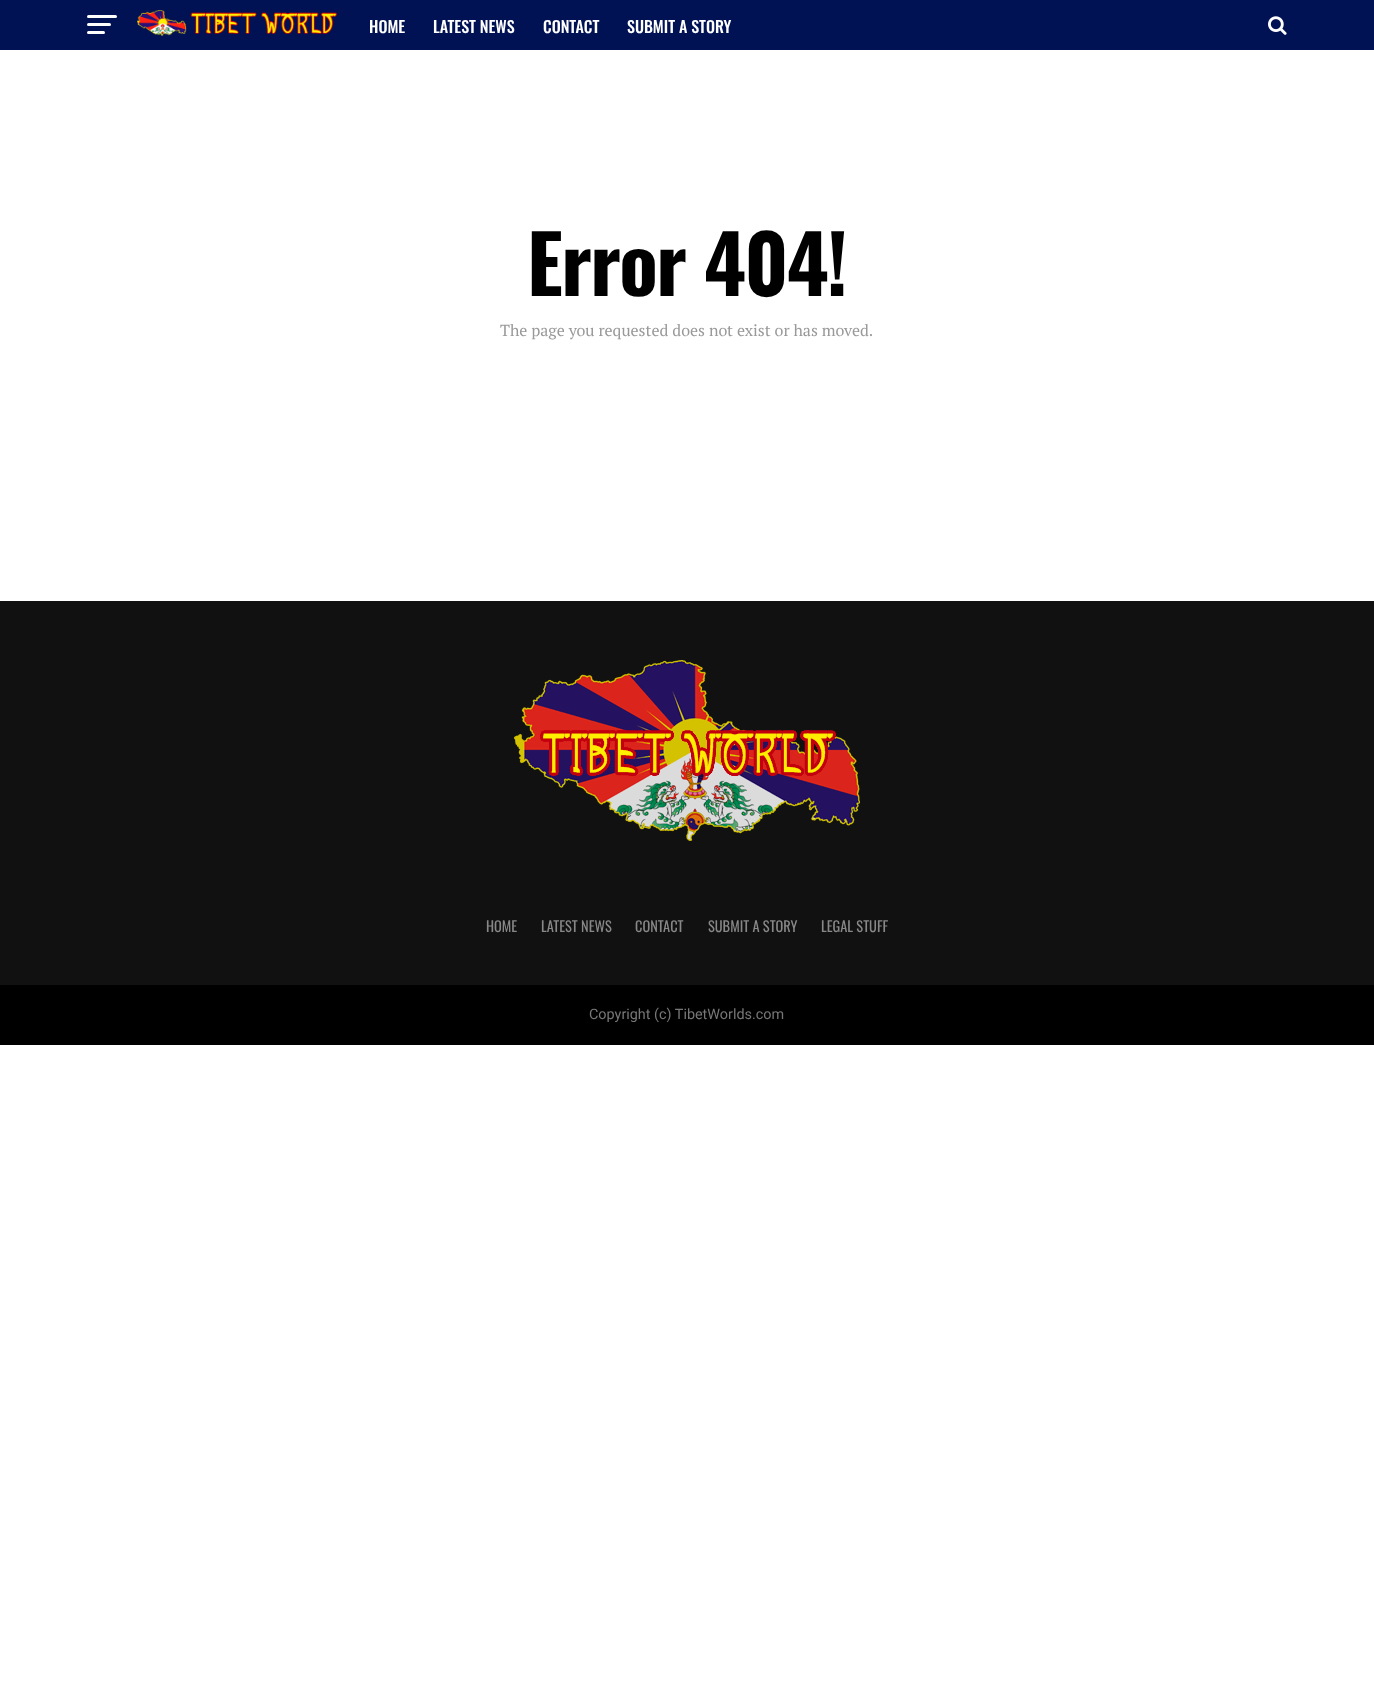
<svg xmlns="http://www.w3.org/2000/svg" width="1374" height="1686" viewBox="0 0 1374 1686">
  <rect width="100%" height="100%" fill="#ffffff"/>
  <rect x="0" y="0" width="1374" height="50" fill="#001254"/>
  <rect x="87" y="15" width="30" height="3" rx="1.5" fill="#ffffff"/>
  <rect x="87" y="23" width="24" height="3" rx="1.5" fill="#ffffff"/>
  <rect x="87" y="31" width="18" height="3" rx="1.5" fill="#ffffff"/>
  <image x="137" y="10" width="200" height="26" href="img1.png"/>
  <text x="369" y="33" font-family="Oswald" font-size="16" font-weight="500" fill="#ffffff">HOME</text>
  <text x="433" y="33" font-family="Oswald" font-size="16" font-weight="500" fill="#ffffff">LATEST NEWS</text>
  <text x="543" y="33" font-family="Oswald" font-size="16" font-weight="500" fill="#ffffff">CONTACT</text>
  <text x="627" y="33" font-family="Oswald" font-size="16" font-weight="500" fill="#ffffff">SUBMIT A STORY</text>
  <image x="1268" y="16" width="19" height="19" href="img2.png"/>
  <text x="527" y="296" font-family="Oswald" font-size="80" font-weight="bold" letter-spacing="-1.6" fill="#000000">Error 404!</text>
  <text x="500" y="336" font-family="PT Serif" font-size="16" fill="#999999">The page you requested does not exist or has moved.</text>
  <rect x="0" y="601" width="1374" height="384" fill="#111111"/>
  <image x="514" y="660" width="346" height="181" href="img3.png"/>
  <text x="486" y="932" font-family="Oswald" font-size="14.4" fill="#888888">HOME</text>
  <text x="541" y="932" font-family="Oswald" font-size="14.4" fill="#888888">LATEST NEWS</text>
  <text x="635" y="932" font-family="Oswald" font-size="14.4" fill="#888888">CONTACT</text>
  <text x="708" y="932" font-family="Oswald" font-size="14.4" fill="#888888">SUBMIT A STORY</text>
  <text x="821" y="932" font-family="Oswald" font-size="14.4" fill="#888888">LEGAL STUFF</text>
  <rect x="0" y="985" width="1374" height="60" fill="#000000"/>
  <text x="589" y="1019" font-family="Roboto" font-size="14.4" fill="#777777">Copyright (c) TibetWorlds.com</text>
</svg>
